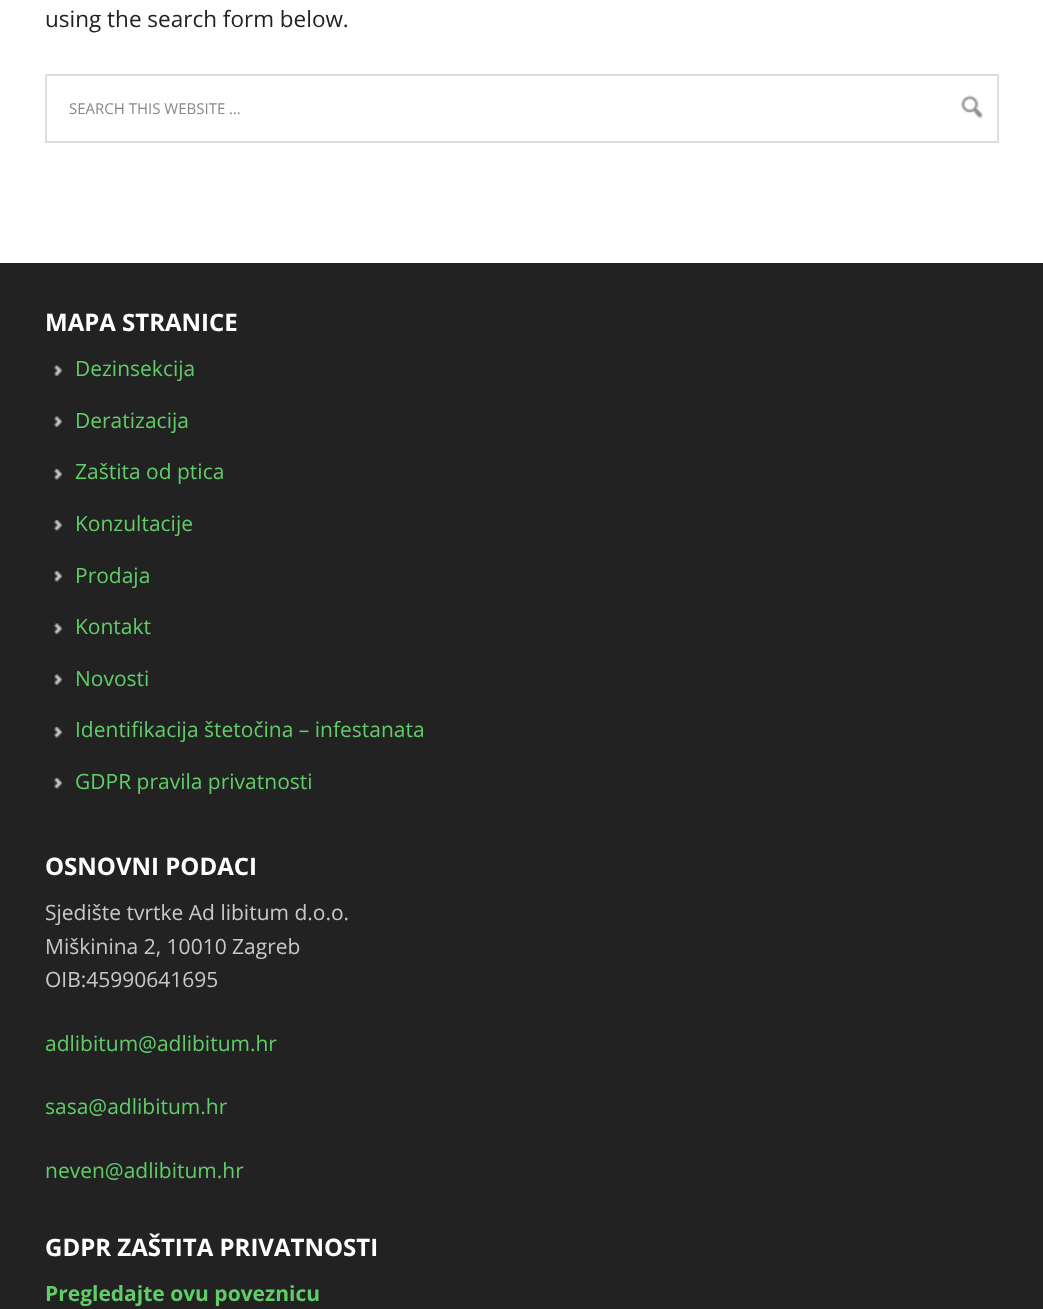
<svg xmlns="http://www.w3.org/2000/svg" width="1043" height="1309" viewBox="0 0 1043 1309">
  <rect width="100%" height="100%" fill="#ffffff"/>
  <text x="45" y="27" font-family="Open Sans" font-size="22.5" fill="#222222">using the search form below.</text>
  <image x="961" y="95" width="22" height="24" href="img1.png"/>
  <rect x="46" y="75" width="952" height="67" fill="none" stroke="#dddddd" stroke-width="2"/>
  <text x="69" y="114" font-family="Open Sans" font-size="15" fill="#888888">SEARCH THIS WEBSITE …</text>
  <rect x="0" y="263" width="1043" height="1046" fill="#222222"/>
  <text x="45" y="331" font-family="Open Sans" font-size="24" font-weight="bold" fill="#ffffff">MAPA STRANICE</text>
  <image x="54" y="365" width="9" height="11" href="img2.png"/>
  <text x="75" y="376" font-family="Open Sans" font-size="21" fill="#60cd69">Dezinsekcija</text>
  <image x="54" y="416" width="9" height="11" href="img2.png"/>
  <text x="75" y="428" font-family="Open Sans" font-size="21" fill="#60cd69">Deratizacija</text>
  <image x="54" y="469" width="9" height="11" href="img3.png"/>
  <text x="75" y="479" font-family="Open Sans" font-size="21" fill="#60cd69">Zaštita od ptica</text>
  <image x="54" y="520" width="9" height="11" href="img3.png"/>
  <text x="75" y="531" font-family="Open Sans" font-size="21" fill="#60cd69">Konzultacije</text>
  <image x="54" y="571" width="9" height="11" href="img3.png"/>
  <text x="75" y="583" font-family="Open Sans" font-size="21" fill="#60cd69">Prodaja</text>
  <image x="54" y="623" width="9" height="11" href="img2.png"/>
  <text x="75" y="634" font-family="Open Sans" font-size="21" fill="#60cd69">Kontakt</text>
  <image x="54" y="674" width="9" height="11" href="img2.png"/>
  <text x="75" y="686" font-family="Open Sans" font-size="21" fill="#60cd69">Novosti</text>
  <image x="54" y="727" width="9" height="11" href="img3.png"/>
  <text x="75" y="737" font-family="Open Sans" font-size="21" fill="#60cd69">Identifikacija štetočina – infestanata</text>
  <image x="54" y="778" width="9" height="11" href="img3.png"/>
  <text x="75" y="789" font-family="Open Sans" font-size="21" fill="#60cd69">GDPR pravila privatnosti</text>
  <text x="45" y="875" font-family="Open Sans" font-size="24" font-weight="bold" fill="#ffffff">OSNOVNI PODACI</text>
  <text x="45" y="920" font-family="Open Sans" font-size="21" fill="#c8c8c8">Sjedište tvrtke Ad libitum d.o.o.</text>
  <text x="45" y="954" font-family="Open Sans" font-size="21" fill="#c8c8c8">Miškinina 2, 10010 Zagreb</text>
  <text x="45" y="987" font-family="Open Sans" font-size="21" fill="#c8c8c8">OIB:45990641695</text>
  <text x="45" y="1051" font-family="Open Sans" font-size="21" fill="#60cd69">adlibitum@adlibitum.hr</text>
  <text x="45" y="1114" font-family="Open Sans" font-size="21" fill="#60cd69">sasa@adlibitum.hr</text>
  <text x="45" y="1178" font-family="Open Sans" font-size="21" fill="#60cd69">neven@adlibitum.hr</text>
  <text x="45" y="1256" font-family="Open Sans" font-size="24" font-weight="bold" fill="#ffffff">GDPR ZAŠTITA PRIVATNOSTI</text>
  <text x="45" y="1301" font-family="Open Sans" font-size="21" font-weight="bold" fill="#60cd69">Pregledajte ovu poveznicu</text>
</svg>
